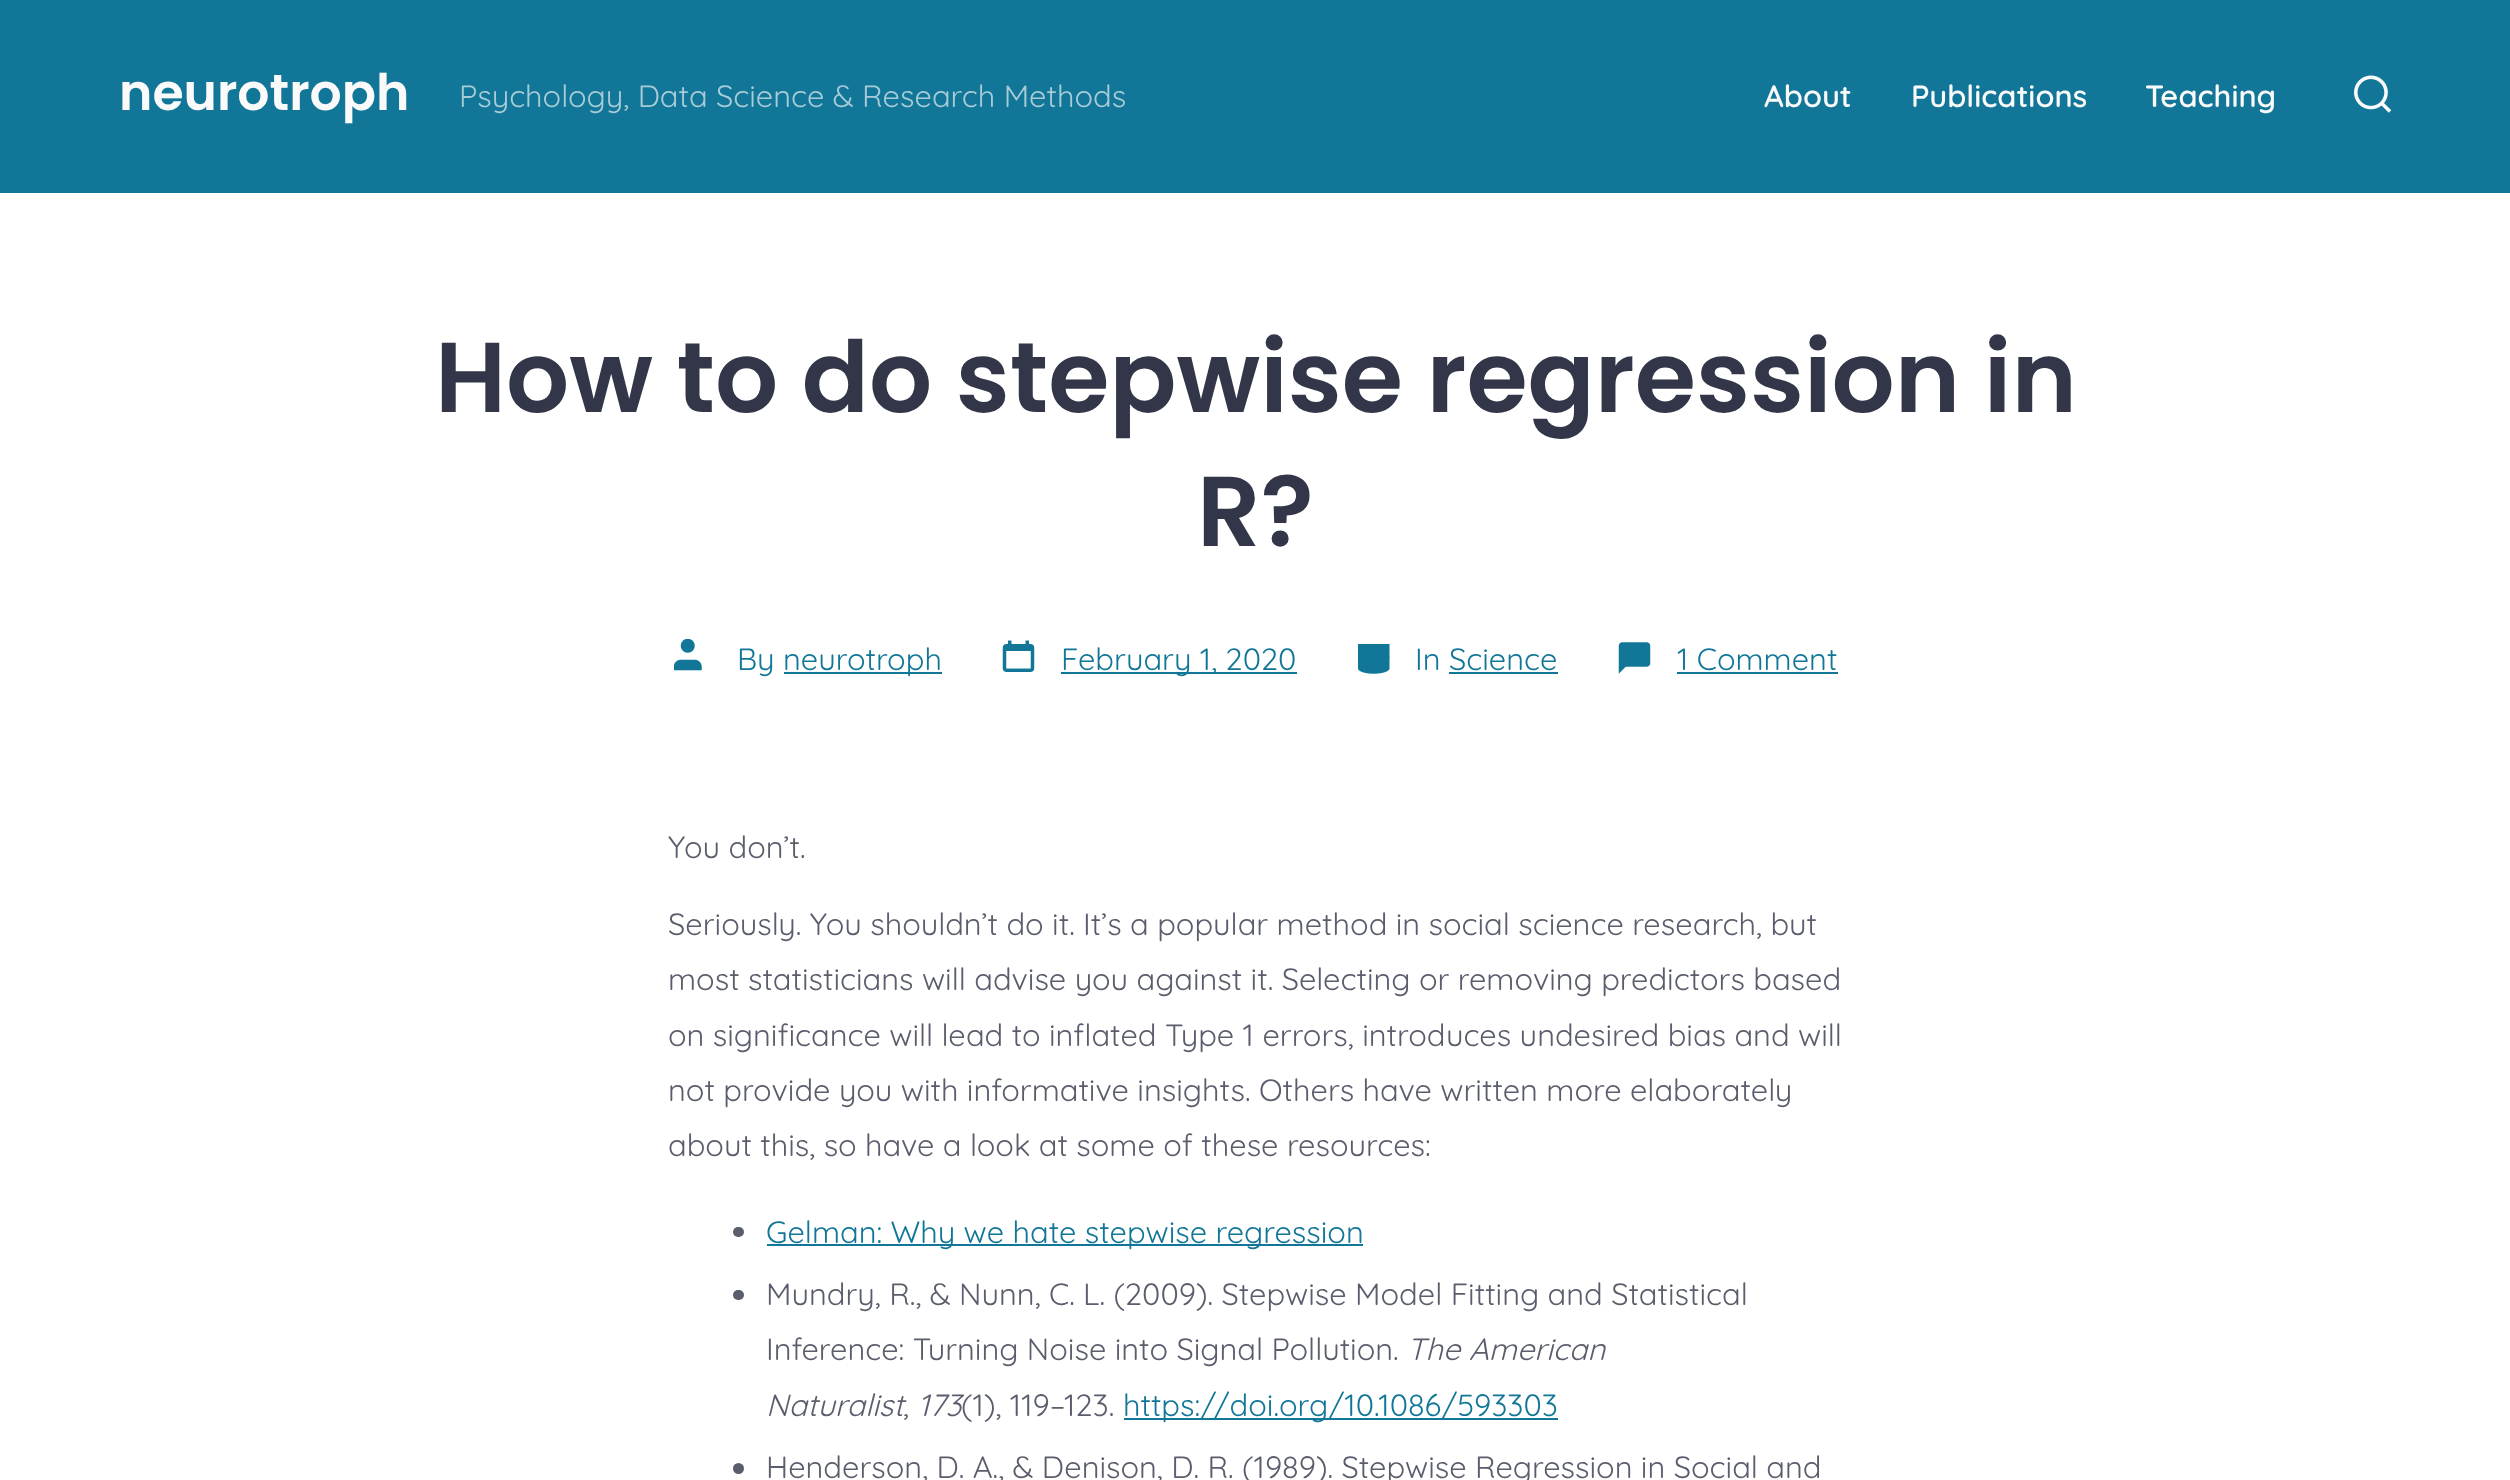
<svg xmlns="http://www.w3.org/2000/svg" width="2510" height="1480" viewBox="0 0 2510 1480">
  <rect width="100%" height="100%" fill="#ffffff"/>
  <rect x="0" y="0" width="2510" height="193" fill="#117697"/>
  <text x="119" y="110" font-family="Poppins" font-size="50.5" font-weight="600" fill="#fafafa">neurotroph</text>
  <text x="459" y="107" font-family="Quicksand" font-size="30.8" fill="#a8ccd7">Psychology, Data Science &amp; Research Methods</text>
  <text x="1764" y="107" font-family="Quicksand" font-size="30.8" font-weight="600" fill="#fafafa">About</text>
  <text x="1911" y="107" font-family="Quicksand" font-size="30.8" font-weight="600" fill="#fafafa">Publications</text>
  <text x="2145" y="107" font-family="Quicksand" font-size="30.8" font-weight="600" fill="#fafafa">Teaching</text>
  <image x="2354" y="75" width="38" height="38" href="img1.png"/>
  <text x="435" y="412" font-family="Poppins" font-size="99.1" font-weight="600" fill="#323648">How to do stepwise regression in</text>
  <text x="1197" y="546" font-family="Poppins" font-size="99.1" font-weight="600" fill="#323648">R?</text>
  <image x="674" y="639" width="28" height="32" href="img2.png"/>
  <text x="737" y="670" font-family="Quicksand" font-size="30.8" fill="#117697">By</text>
  <rect x="784" y="672" width="158" height="2" fill="#117697"/>
  <text x="783" y="670" font-family="Quicksand" font-size="30.8" fill="#117697">neurotroph</text>
  <image x="1002" y="640" width="33" height="32" href="img3.png"/>
  <rect x="1061" y="672" width="236" height="2" fill="#117697"/>
  <text x="1061" y="670" font-family="Quicksand" font-size="30.8" fill="#117697">February 1, 2020</text>
  <image x="1358" y="644" width="32" height="30" href="img4.png"/>
  <text x="1415" y="670" font-family="Quicksand" font-size="30.8" fill="#117697">In Science</text>
  <rect x="1449" y="672" width="109" height="2" fill="#117697"/>
  <image x="1618" y="642" width="33" height="32" href="img5.png"/>
  <text x="1677" y="670" font-family="Quicksand" font-size="30.8" fill="#117697">1 Comment</text>
  <rect x="1677" y="672" width="161" height="2" fill="#117697"/>
  <text x="668" y="858" font-family="Quicksand" font-size="30.8" fill="#5a5d6c">You don’t.</text>
  <text x="668" y="935" font-family="Quicksand" font-size="30.8" fill="#5a5d6c">Seriously. You shouldn’t do it. It’s a popular method in social science research, but</text>
  <text x="668" y="990" font-family="Quicksand" font-size="30.8" fill="#5a5d6c">most statisticians will advise you against it. Selecting or removing predictors based</text>
  <text x="668" y="1046" font-family="Quicksand" font-size="30.8" fill="#5a5d6c">on significance will lead to inflated Type 1 errors, introduces undesired bias and will</text>
  <text x="668" y="1101" font-family="Quicksand" font-size="30.8" fill="#5a5d6c">not provide you with informative insights. Others have written more elaborately</text>
  <text x="668" y="1156" font-family="Quicksand" font-size="30.8" fill="#5a5d6c">about this, so have a look at some of these resources:</text>
  <rect x="733" y="1227" width="11" height="10" rx="5" fill="#5a5d6c"/>
  <rect x="767" y="1244" width="596" height="2" fill="#117697"/>
  <text x="766" y="1243" font-family="Quicksand" font-size="30.8" fill="#117697">Gelman: Why we hate stepwise regression</text>
  <rect x="733" y="1290" width="11" height="10" rx="5" fill="#5a5d6c"/>
  <text x="766" y="1305" font-family="Quicksand" font-size="30.8" fill="#5a5d6c">Mundry, R., &amp; Nunn, C. L. (2009). Stepwise Model Fitting and Statistical</text>
  <text x="766" y="1360" font-family="Quicksand" font-size="30.8" fill="#5a5d6c">Inference: Turning Noise into Signal Pollution.</text>
  <text x="1407" y="1360" font-family="Quicksand" font-size="30.8" font-style="italic" fill="#5a5d6c">The American</text>
  <text x="766" y="1416" font-family="Quicksand" font-size="30.8" font-style="italic" fill="#5a5d6c">Naturalist</text>
  <text x="918" y="1416" font-family="Quicksand" font-size="30.8" font-style="italic" fill="#5a5d6c">173</text>
  <text x="961" y="1416" font-family="Quicksand" font-size="30.8" fill="#5a5d6c">(1), 119–123.</text>
  <rect x="1124" y="1418" width="434" height="2" fill="#117697"/>
  <text x="1123" y="1416" font-family="Quicksand" font-size="30.8" fill="#117697">https://doi.org/10.1086/593303</text>
  <text x="903" y="1416" font-family="Quicksand" font-size="30.8" fill="#5a5d6c">,</text>
  <circle cx="738.5" cy="1468.5" r="5.5" fill="#5a5d6c"/>
  <text x="766" y="1478" font-family="Quicksand" font-size="30.8" fill="#5a5d6c">Henderson, D. A., &amp; Denison, D. R. (1989). Stepwise Regression in Social and</text>
</svg>
